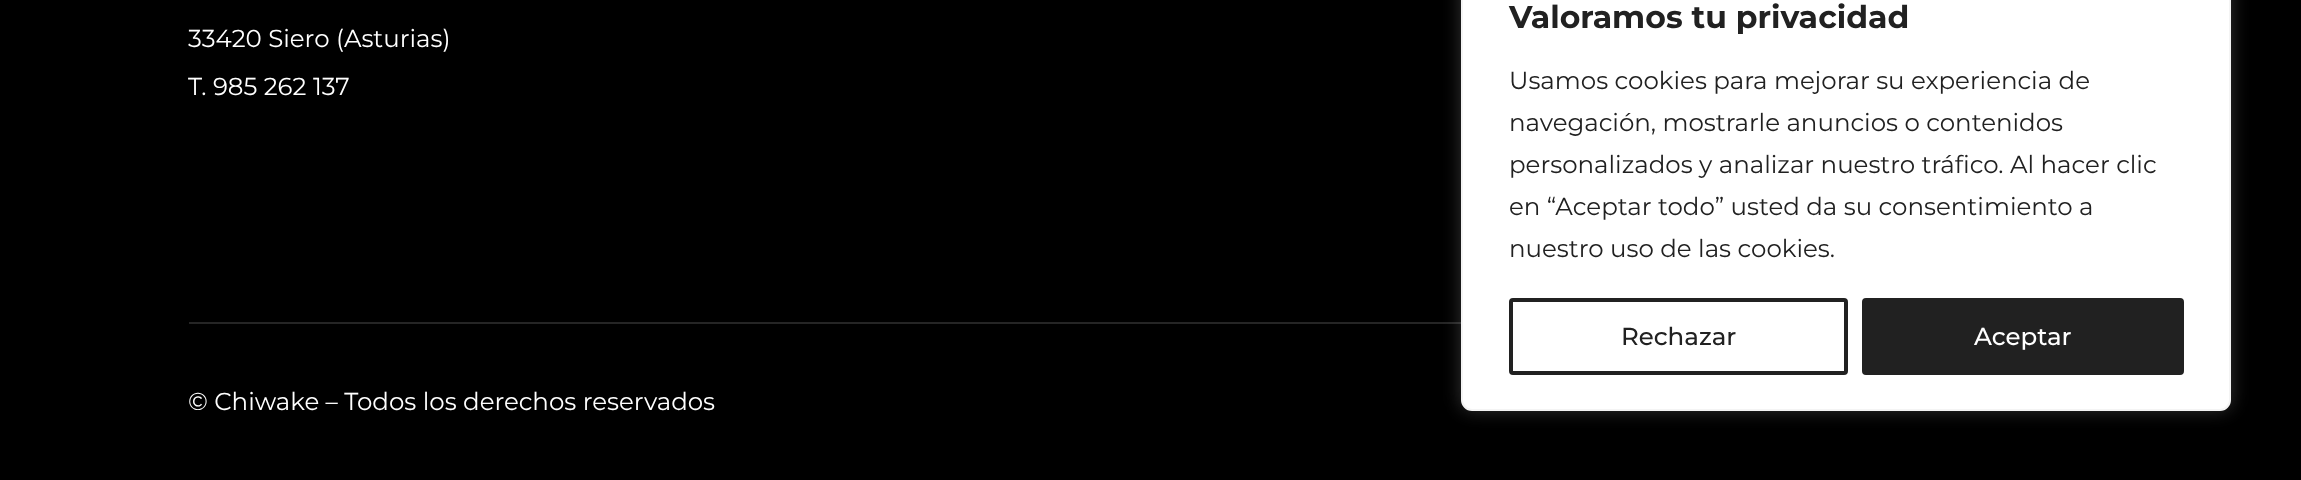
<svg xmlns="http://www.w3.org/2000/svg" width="2301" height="480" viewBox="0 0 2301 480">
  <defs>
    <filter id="blur1" x="-50%" y="-200%" width="200%" height="500%"><feGaussianBlur stdDeviation="9"/></filter>
  </defs>
  <rect width="100%" height="100%" fill="#000000"/>
  <text x="188" y="47" font-family="Montserrat" font-size="24.5" fill="#ffffff">33420 Siero (Asturias)</text>
  <text x="188" y="95" font-family="Montserrat" font-size="24.5" fill="#ffffff">T. 985 262 137</text>
  <rect x="189" y="322" width="1272" height="2" fill="#252525"/>
  <text x="188" y="410" font-family="Montserrat" font-size="24.5" fill="#ffffff">© Chiwake – Todos los derechos reservados</text>
  <rect x="1461" y="-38" width="770" height="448" rx="11" fill="#acabab" fill-opacity="0.3" filter="url(#blur1)"/>
  <rect x="1462" y="-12" width="768" height="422" rx="10" fill="#ffffff" stroke="#f4f4f4" stroke-width="2"/>
  <text x="1509" y="28" font-family="Montserrat" font-size="31.5" font-weight="bold" fill="#212121">Valoramos tu privacidad</text>
  <text x="1509" y="89" font-family="Montserrat" font-size="24.5" fill="#212121">Usamos cookies para mejorar su experiencia de</text>
  <text x="1509" y="131" font-family="Montserrat" font-size="24.5" fill="#212121">navegación, mostrarle anuncios o contenidos</text>
  <text x="1509" y="173" font-family="Montserrat" font-size="24.5" fill="#212121">personalizados y analizar nuestro tráfico. Al hacer clic</text>
  <text x="1509" y="215" font-family="Montserrat" font-size="24.5" fill="#212121">en “Aceptar todo” usted da su consentimiento a</text>
  <text x="1509" y="257" font-family="Montserrat" font-size="24.5" fill="#212121">nuestro uso de las cookies.</text>
  <rect x="1511" y="300" width="335" height="73" rx="2" fill="none" stroke="#212121" stroke-width="4"/>
  <text x="1621" y="345" font-family="Montserrat" font-size="24.5" font-weight="500" fill="#212121">Rechazar</text>
  <rect x="1864" y="300" width="318" height="73" rx="2" fill="#212121" stroke="#212121" stroke-width="4"/>
  <text x="1974" y="345" font-family="Montserrat" font-size="24.5" font-weight="500" fill="#ffffff">Aceptar</text>
</svg>
